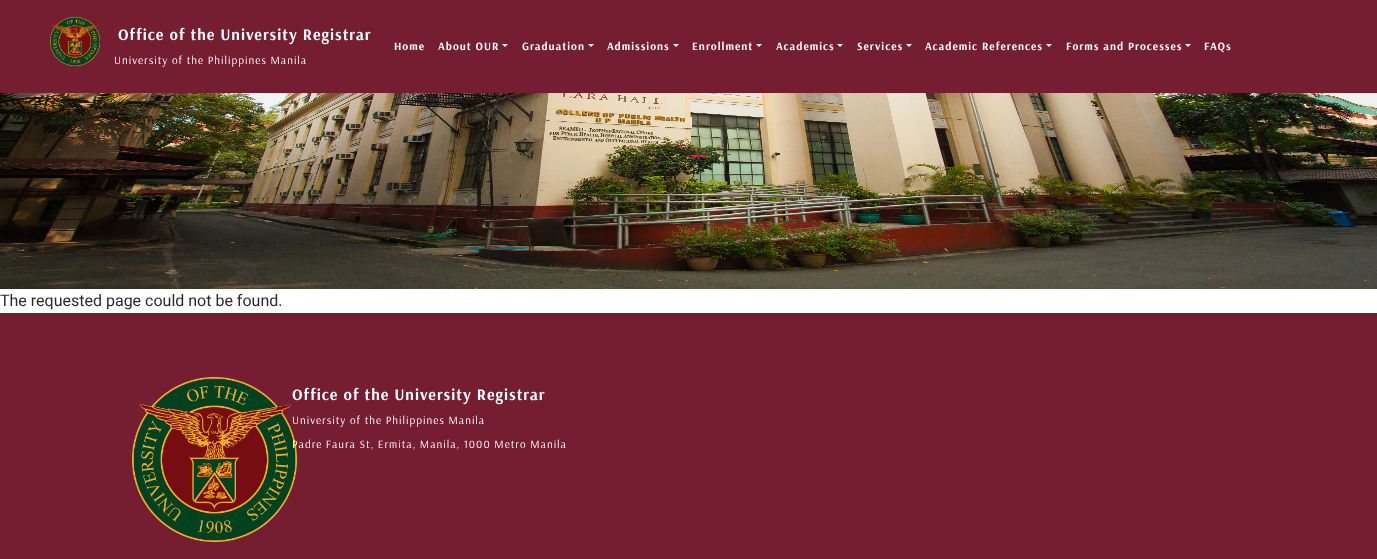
<svg xmlns="http://www.w3.org/2000/svg" width="1377" height="559" viewBox="0 0 1377 559">
  <rect width="100%" height="100%" fill="#ffffff"/>
  <rect x="0" y="0" width="1377" height="93" fill="#751d31"/>
  <image x="50" y="16" width="50" height="51" href="img1.png"/>
  <text x="118" y="40" font-family="Arsenal" font-size="16" font-weight="bold" letter-spacing="1" fill="#ffffff">Office of the University Registrar</text>
  <text x="114" y="64" font-family="Arsenal" font-size="11.2" letter-spacing="1" fill="#ffffff">University of the Philippines Manila</text>
  <text x="394" y="50" font-family="Arsenal" font-size="11.2" font-weight="bold" letter-spacing="1" fill="#ffffff">Home</text>
  <text x="438" y="50" font-family="Arsenal" font-size="11.2" font-weight="bold" letter-spacing="1" fill="#ffffff">About OUR</text>
  <path d="M502 44H508L505 47Z" fill="#ffffff"/>
  <text x="522" y="50" font-family="Arsenal" font-size="11.2" font-weight="bold" letter-spacing="1" fill="#ffffff">Graduation</text>
  <path d="M588 44H594L591 47Z" fill="#ffffff"/>
  <text x="607" y="50" font-family="Arsenal" font-size="11.2" font-weight="bold" letter-spacing="1" fill="#ffffff">Admissions</text>
  <path d="M673 44H679L676 47Z" fill="#ffffff"/>
  <text x="692" y="50" font-family="Arsenal" font-size="11.2" font-weight="bold" letter-spacing="1" fill="#ffffff">Enrollment</text>
  <path d="M756 44H762L759 47Z" fill="#ffffff"/>
  <text x="776" y="50" font-family="Arsenal" font-size="11.2" font-weight="bold" letter-spacing="1" fill="#ffffff">Academics</text>
  <path d="M837 44H843L840 47Z" fill="#ffffff"/>
  <text x="857" y="50" font-family="Arsenal" font-size="11.2" font-weight="bold" letter-spacing="1" fill="#ffffff">Services</text>
  <path d="M906 44H912L909 47Z" fill="#ffffff"/>
  <text x="925" y="50" font-family="Arsenal" font-size="11.2" font-weight="bold" letter-spacing="1" fill="#ffffff">Academic References</text>
  <path d="M1046 44H1052L1049 47Z" fill="#ffffff"/>
  <text x="1066" y="50" font-family="Arsenal" font-size="11.2" font-weight="bold" letter-spacing="1" fill="#ffffff">Forms and Processes</text>
  <path d="M1185 44H1191L1188 47Z" fill="#ffffff"/>
  <text x="1204" y="50" font-family="Arsenal" font-size="11.2" font-weight="bold" letter-spacing="1" fill="#ffffff">FAQs</text>
  <image x="0" y="93" width="1377" height="196" href="img2.png"/>
  <text x="0" y="306" font-family="Roboto" font-size="16" fill="#2a2a2d">The requested page could not be found.</text>
  <rect x="0" y="313" width="1377" height="246" fill="#751d31"/>
  <image x="132" y="377" width="165" height="165" href="img3.png"/>
  <text x="292" y="400" font-family="Arsenal" font-size="16" font-weight="bold" letter-spacing="1" fill="#ffffff">Office of the University Registrar</text>
  <text x="292" y="424" font-family="Arsenal" font-size="11.2" letter-spacing="1" fill="#ffffff">University of the Philippines Manila</text>
  <text x="292" y="448" font-family="Arsenal" font-size="11.2" letter-spacing="1" fill="#ffffff">Padre Faura St, Ermita, Manila, 1000 Metro Manila</text>
</svg>
